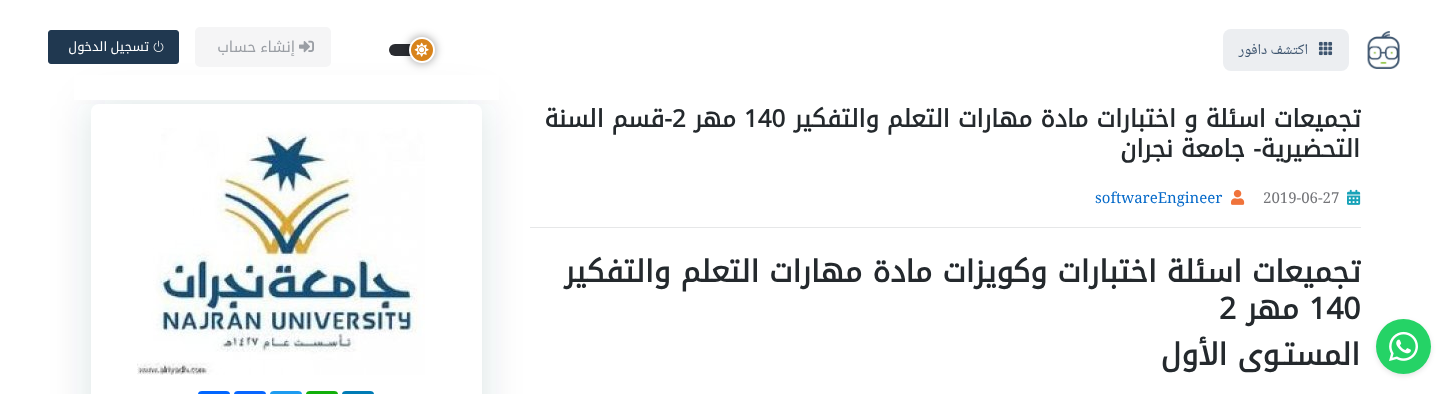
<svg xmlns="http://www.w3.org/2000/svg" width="1451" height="394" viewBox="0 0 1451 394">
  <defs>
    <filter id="blur1" x="-50%" y="-200%" width="200%" height="500%"><feGaussianBlur stdDeviation="20"/></filter>
    <filter id="blur2" x="-50%" y="-200%" width="200%" height="500%"><feGaussianBlur stdDeviation="5"/></filter>
    <filter id="blur3" x="-50%" y="-200%" width="200%" height="500%"><feGaussianBlur stdDeviation="2.5"/></filter>
  </defs>
  <rect width="100%" height="100%" fill="#ffffff"/>
  <rect x="530" y="227" width="831" height="1" fill="#e6e7e8"/>
  <rect x="91" y="104" width="391" height="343" rx="8" fill="#1d3a53" fill-opacity="0.15" filter="url(#blur1)"/>
  <rect x="74" y="75" width="425" height="25" fill="#ffffff"/>
  <image x="1367" y="31" width="33" height="38" href="img1.png"/>
  <rect x="1223" y="29" width="126" height="42" rx="8" fill="#eceef1"/>
  <image x="1318" y="41" width="15" height="15" href="img2.png"/>
  <text x="1308" y="54" font-family="Noto Naskh Arabic" font-size="15" direction="rtl" fill="#3d546e">اكتشف دافور</text>
  <rect x="389" y="44" width="42" height="12" rx="6" fill="#2a2c31"/>
  <rect x="409" y="37" width="26" height="26" rx="13" fill="#000000" fill-opacity="0.4" filter="url(#blur2)"/>
  <circle cx="422" cy="50" r="12" fill="#d8831b" stroke="#ffffff" stroke-width="2"/>
  <image x="414" y="42" width="15" height="15" href="img3.png"/>
  <rect x="195" y="27" width="136" height="40" rx="5" fill="#f5f5f6"/>
  <image x="299" y="40" width="15" height="13" href="img4.png"/>
  <text x="295" y="52" word-spacing="-1" font-family="Noto Kufi Arabic" font-size="15" letter-spacing="0.5" direction="rtl" fill="#9a9ea4">إنشاء حساب</text>
  <rect x="48.5" y="30.5" width="130" height="33" rx="2.5" fill="#203850" stroke="#203850"/>
  <image x="153" y="40" width="11" height="12" href="img5.png"/>
  <text x="149" y="51" word-spacing="-1" font-family="Noto Kufi Arabic" font-size="13" letter-spacing="0.5" direction="rtl" fill="#ffffff">تسجيل الدخول</text>
  <rect x="1376" y="321" width="55" height="55" rx="27.5" fill="#000000" fill-opacity="0.1" filter="url(#blur3)"/>
  <circle cx="1403.5" cy="346.5" r="27.5" fill="#25d366"/>
  <image x="1389" y="331" width="29" height="30" href="img6.png"/>
  <text x="1361" y="127" font-family="Noto Kufi Arabic" font-size="24" font-weight="bold" direction="rtl" fill="#24292d">تجميعات اسئلة و اختبارات مادة مهارات التعلم والتفكير</text>
  <text x="744" y="127" font-family="Noto Kufi Arabic" font-size="24" font-weight="bold" fill="#24292d">140</text>
  <text x="736" y="127" font-family="Noto Kufi Arabic" font-size="24" font-weight="bold" direction="rtl" fill="#24292d">مهر</text>
  <text x="672" y="127" font-family="Noto Kufi Arabic" font-size="24" font-weight="bold" fill="#24292d">2</text>
  <text x="672" y="127" font-family="Noto Kufi Arabic" font-size="24" font-weight="bold" direction="rtl" fill="#24292d">-قسم السنة</text>
  <text x="1360" y="157" font-family="Noto Kufi Arabic" font-size="24" font-weight="bold" direction="rtl" fill="#24292d">التحضيرية- جامعة نجران</text>
  <image x="1347" y="189" width="14" height="16" href="img7.png"/>
  <text x="1263" y="203" font-family="Noto Naskh Arabic" font-size="15" fill="#747579">2019-06-27</text>
  <image x="1231" y="189" width="14" height="16" href="img8.png"/>
  <text x="1095" y="203" font-family="Noto Naskh Arabic" font-size="15" fill="#066ac9">softwareEngineer</text>
  <text x="1361" y="282" font-family="Noto Kufi Arabic" font-size="30" font-weight="bold" direction="rtl" fill="#24292d">تجميعات اسئلة اختبارات وكويزات مادة مهارات التعلم والتفكير</text>
  <text x="1309" y="319" font-family="Noto Kufi Arabic" font-size="30" font-weight="bold" fill="#24292d">140</text>
  <text x="1299" y="319" font-family="Noto Kufi Arabic" font-size="30" font-weight="bold" direction="rtl" fill="#24292d">مهر</text>
  <text x="1219" y="319" font-family="Noto Kufi Arabic" font-size="30" font-weight="bold" fill="#24292d">2</text>
  <text x="1360" y="365" font-family="Noto Kufi Arabic" font-size="30" font-weight="bold" direction="rtl" fill="#24292d">المستـوى الأول</text>
  <rect x="91" y="104" width="391" height="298" rx="8" fill="#ffffff"/>
  <image x="137" y="128" width="288" height="247" href="img9.png"/>
  <rect x="342" y="391" width="32" height="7" rx="4" fill="#007bb5"/>
  <rect x="306" y="391" width="32" height="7" rx="4" fill="#12af0a"/>
  <rect x="270" y="391" width="32" height="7" rx="4" fill="#1d9bf0"/>
  <rect x="234" y="391" width="32" height="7" rx="4" fill="#0866ff"/>
  <rect x="198" y="391" width="32" height="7" rx="4" fill="#0166ff"/>
</svg>
